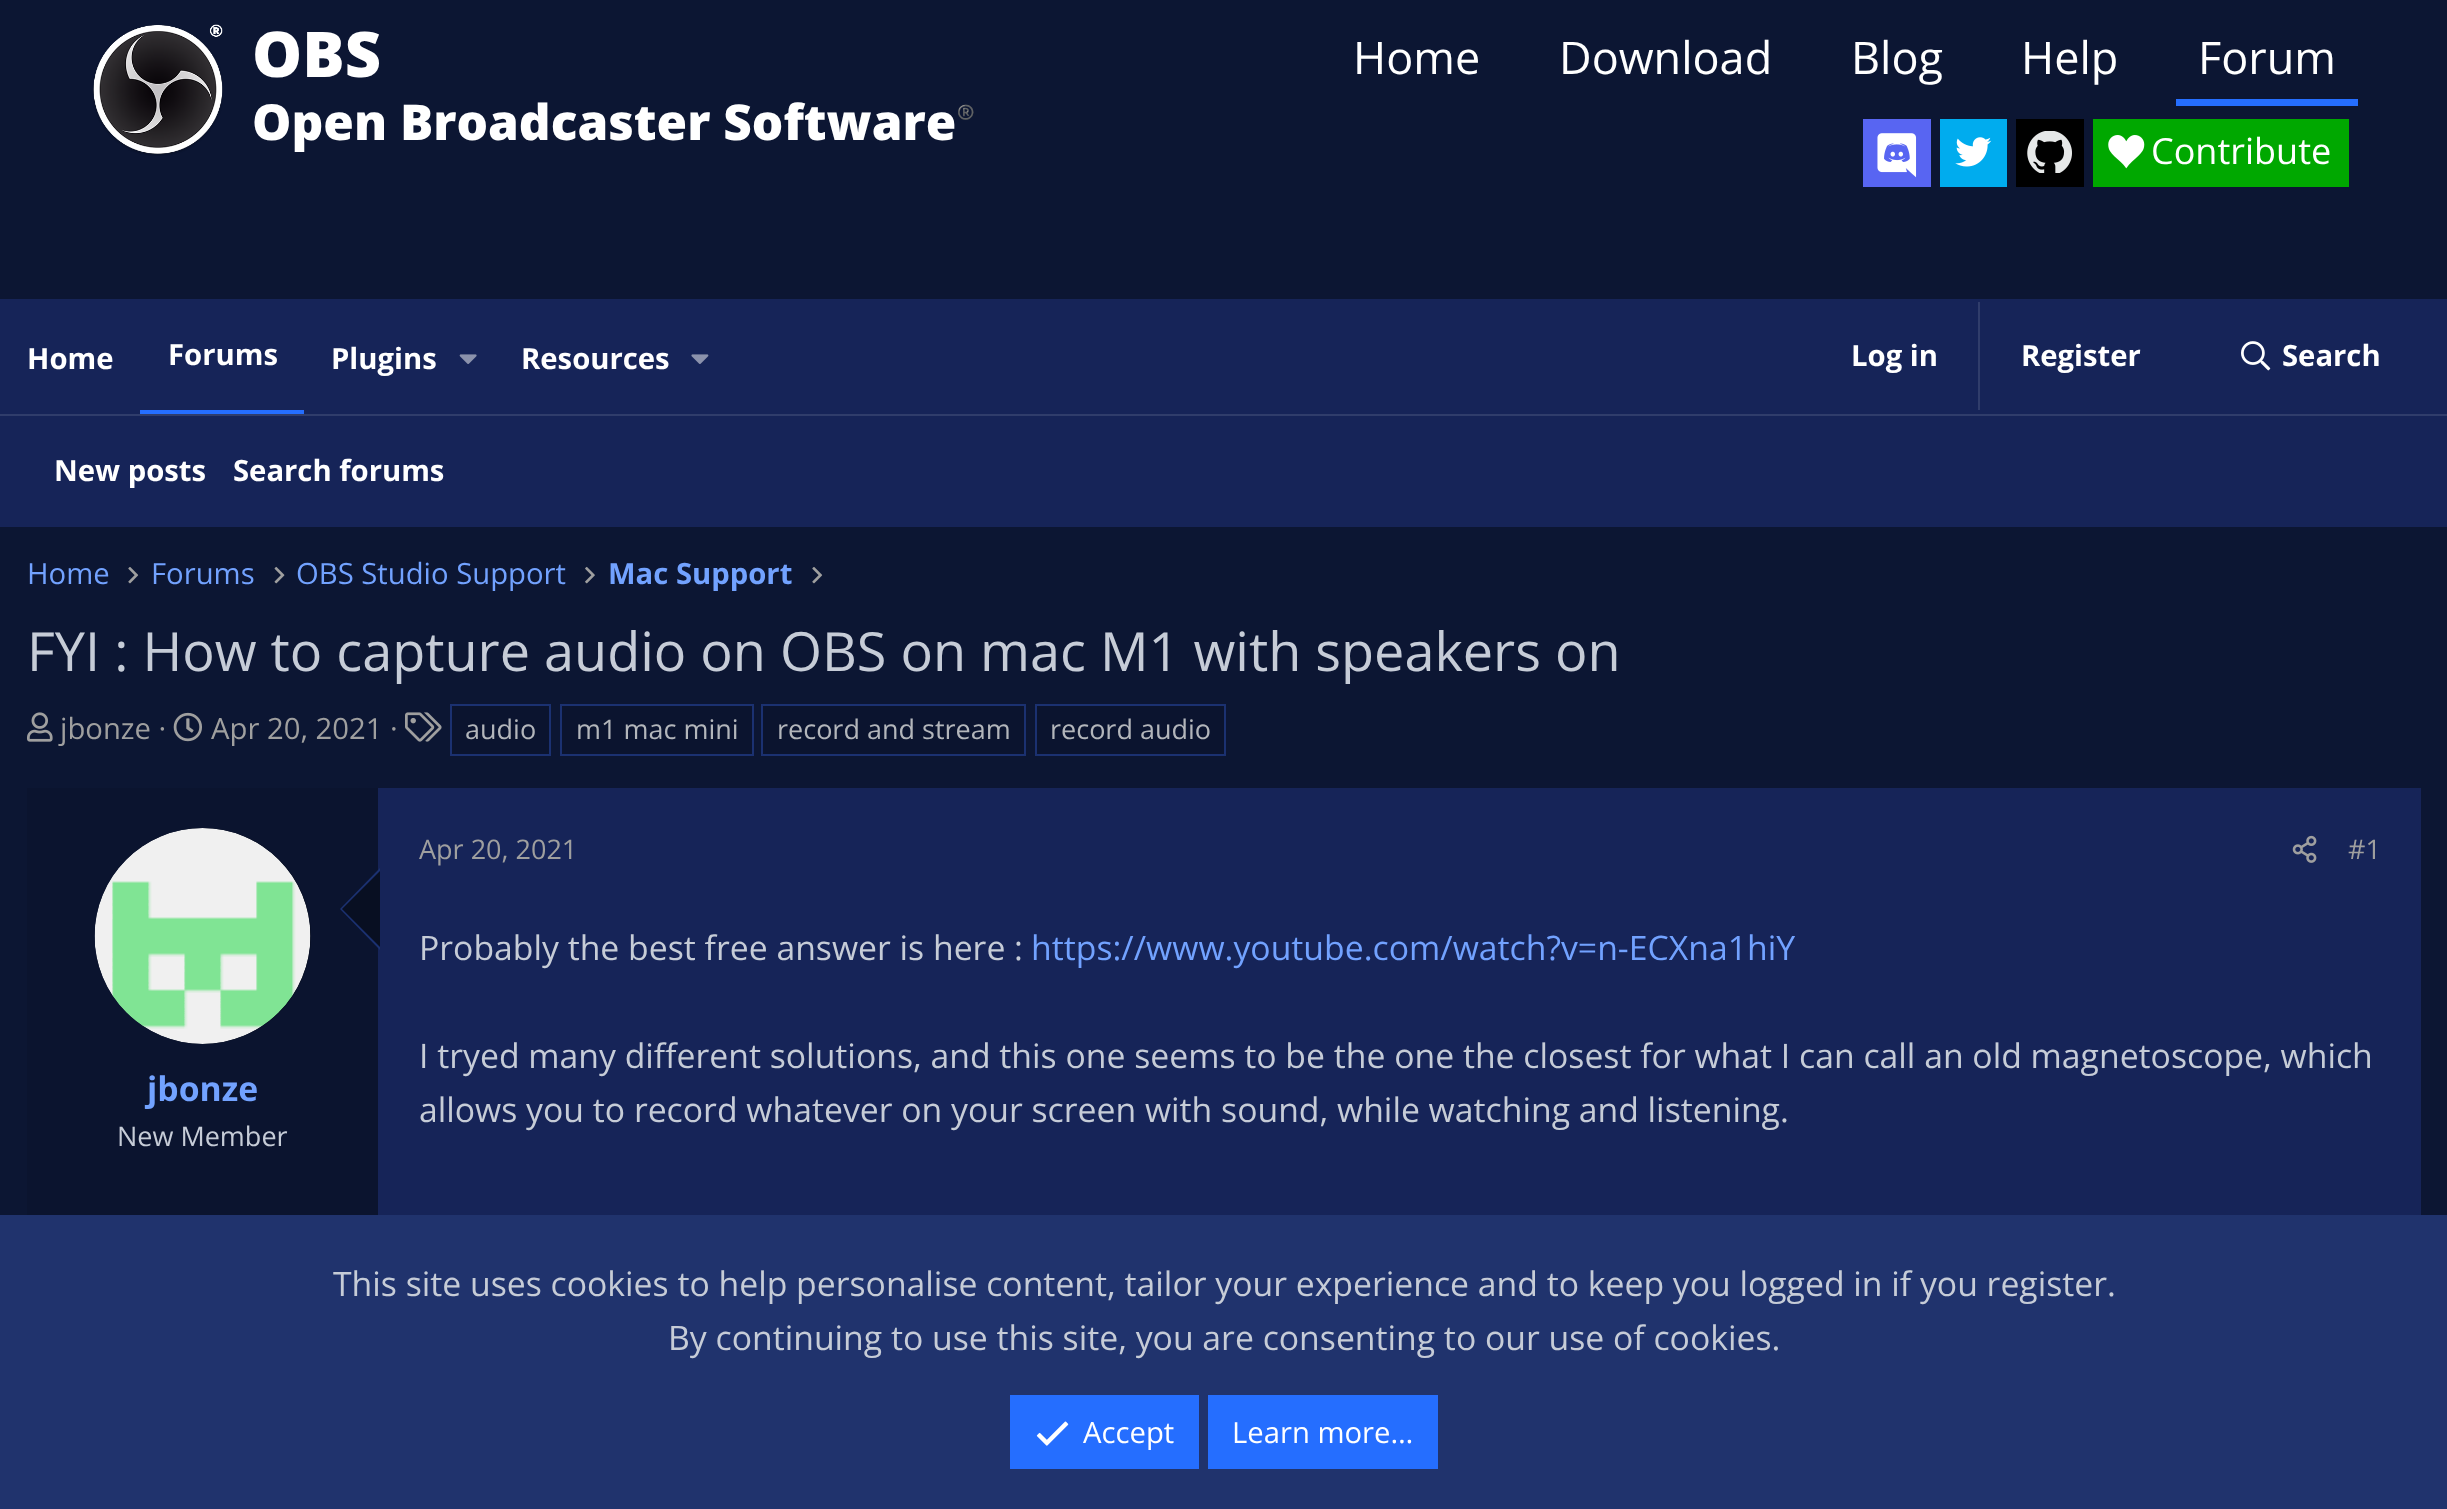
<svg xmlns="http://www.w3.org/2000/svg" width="2447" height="1509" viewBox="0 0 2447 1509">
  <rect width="100%" height="100%" fill="#0c1633"/>
  <image x="93" y="24" width="130" height="132" href="img1.png"/>
  <text x="252" y="77" font-family="Open Sans" font-size="63" font-weight="800" fill="#ffffff">OBS</text>
  <text x="252" y="140" font-family="Open Sans" font-size="49.5" font-weight="800" fill="#ffffff">Open Broadcaster Software</text>
  <text x="957" y="117" font-family="Noto Color Emoji" font-size="14" font-weight="bold" fill="#ffffff">®️</text>
  <text x="1353" y="74" font-family="Open Sans" font-size="45" fill="#ffffff">Home</text>
  <text x="1559" y="74" font-family="Open Sans" font-size="45" fill="#ffffff">Download</text>
  <text x="1851" y="74" font-family="Open Sans" font-size="45" fill="#ffffff">Blog</text>
  <text x="2021" y="74" font-family="Open Sans" font-size="45" fill="#ffffff">Help</text>
  <rect x="2176" y="99" width="182" height="7" fill="#256eff"/>
  <text x="2198" y="74" font-family="Open Sans" font-size="45" fill="#ffffff">Forum</text>
  <rect x="1863" y="119" width="68" height="68" fill="#5865f2"/>
  <image x="1877" y="133" width="40" height="45" href="img2.png"/>
  <rect x="1940" y="119" width="67" height="68" fill="#00acee"/>
  <image x="1955" y="137" width="37" height="30" href="img3.png"/>
  <rect x="2016" y="119" width="68" height="68" fill="#000000"/>
  <image x="2027" y="131" width="45" height="42" href="img4.png"/>
  <rect x="2093" y="119" width="256" height="68" fill="#00a800"/>
  <image x="2108" y="135" width="37" height="34" href="img5.png"/>
  <text x="2151" y="164" font-family="Open Sans" font-size="36" fill="#ffffff">Contribute</text>
  <rect x="0" y="299" width="2447" height="115" fill="#162458"/>
  <text x="27" y="369" font-family="Open Sans" font-size="29.25" font-weight="bold" fill="#ffffff">Home</text>
  <rect x="140" y="410" width="164" height="4" fill="#256eff"/>
  <text x="168" y="365" font-family="Open Sans" font-size="29.25" font-weight="bold" fill="#ffffff">Forums</text>
  <text x="331" y="369" font-family="Open Sans" font-size="29.25" font-weight="bold" fill="#ffffff">Plugins</text>
  <image x="459" y="354" width="18" height="10" href="img6.png"/>
  <text x="521" y="369" font-family="Open Sans" font-size="29.25" font-weight="bold" fill="#ffffff">Resources</text>
  <image x="691" y="354" width="18" height="10" href="img7.png"/>
  <text x="1851" y="366" font-family="Open Sans" font-size="29.25" font-weight="bold" fill="#ffffff">Log in</text>
  <rect x="1978" y="302" width="2" height="108" fill="#303d6b"/>
  <text x="2021" y="366" font-family="Open Sans" font-size="29.25" font-weight="bold" fill="#ffffff">Register</text>
  <image x="2241" y="341" width="30" height="30" href="img8.png"/>
  <text x="2282" y="366" font-family="Open Sans" font-size="29.25" font-weight="bold" fill="#ffffff">Search</text>
  <rect x="0" y="416" width="2447" height="111" fill="#162458"/>
  <rect x="0" y="414" width="2447" height="2" fill="#303d6b"/>
  <text x="54" y="481" font-family="Open Sans" font-size="29.25" font-weight="bold" fill="#ffffff">New posts</text>
  <text x="233" y="481" font-family="Open Sans" font-size="29.25" font-weight="bold" fill="#ffffff">Search forums</text>
  <text x="27" y="584" font-family="Open Sans" font-size="29.25" fill="#72a2ff">Home</text>
  <image x="128" y="567" width="11" height="17" href="img9.png"/>
  <text x="151" y="584" font-family="Open Sans" font-size="29.25" fill="#72a2ff">Forums</text>
  <image x="274" y="566" width="11" height="18" href="img10.png"/>
  <text x="296" y="584" font-family="Open Sans" font-size="29.25" fill="#72a2ff">OBS Studio Support</text>
  <image x="585" y="566" width="10" height="18" href="img11.png"/>
  <text x="608" y="584" font-family="Open Sans" font-size="29.25" font-weight="bold" fill="#72a2ff">Mac Support</text>
  <image x="812" y="567" width="11" height="17" href="img9.png"/>
  <text x="27" y="671" font-family="Open Sans" font-size="54" fill="#c6ccd7">FYI : How to capture audio on OBS on mac M1 with speakers on</text>
  <image x="27" y="712" width="26" height="30" href="img12.png"/>
  <text x="60" y="739" font-family="Open Sans" font-size="29.25" fill="#9f9f9f">jbonze ·</text>
  <image x="173" y="712" width="29" height="30" href="img13.png"/>
  <text x="211" y="739" font-family="Open Sans" font-size="29.25" fill="#9f9f9f">Apr 20, 2021 ·</text>
  <image x="405" y="712" width="37" height="30" href="img14.png"/>
  <rect x="451" y="705" width="99" height="50" fill="#0b142f" stroke="#1b3171" stroke-width="2"/>
  <text x="465" y="739" font-family="Open Sans" font-size="27" fill="#b3b6bb">audio</text>
  <rect x="561" y="705" width="192" height="50" fill="#0b142f" stroke="#1b3171" stroke-width="2"/>
  <text x="576" y="739" font-family="Open Sans" font-size="27" fill="#b3b6bb">m1 mac mini</text>
  <rect x="762" y="705" width="263" height="50" fill="#0b142f" stroke="#1b3171" stroke-width="2"/>
  <text x="777" y="739" font-family="Open Sans" font-size="27" fill="#b3b6bb">record and stream</text>
  <rect x="1036" y="705" width="189" height="50" fill="#0b142f" stroke="#1b3171" stroke-width="2"/>
  <text x="1050" y="739" font-family="Open Sans" font-size="27" fill="#b3b6bb">record audio</text>
  <rect x="378" y="788" width="2043" height="427" fill="#162458"/>
  <rect x="27" y="788" width="351" height="427" fill="#0b142f"/>
  <circle cx="203" cy="936" r="108" fill="#080f22"/>
  <image x="94" y="828" width="217" height="216" href="img15.png"/>
  <path d="M380 868V950L340 909Z" fill="#1b3171"/>
  <path d="M380 871V947L342 909Z" fill="#080f22"/>
  <text x="147" y="1101" font-family="Open Sans" font-size="33.75" font-weight="bold" fill="#72a2ff">jbonze</text>
  <text x="117" y="1146" font-family="Open Sans" font-size="27" fill="#c6ccd7">New Member</text>
  <text x="419" y="859" font-family="Open Sans" font-size="27" fill="#9f9f9f">Apr 20, 2021</text>
  <image x="2292" y="835" width="25" height="28" href="img16.png"/>
  <text x="2348" y="859" font-family="Open Sans" font-size="27" fill="#9f9f9f">#1</text>
  <text x="419" y="960" font-family="Open Sans" font-size="33.75" fill="#c6ccd7">Probably the best free answer is here :</text>
  <text x="1031" y="960" font-family="Open Sans" font-size="33.75" fill="#72a2ff">https://www.youtube.com/watch?v=n-ECXna1hiY</text>
  <text x="419" y="1068" font-family="Open Sans" font-size="33.75" fill="#c6ccd7">I tryed many different solutions, and this one seems to be the one the closest for what I can call an old magnetoscope, which</text>
  <text x="419" y="1122" font-family="Open Sans" font-size="33.75" fill="#c6ccd7">allows you to record whatever on your screen with sound, while watching and listening.</text>
  <rect x="0" y="1215" width="2447" height="294" fill="#20336d"/>
  <text x="333" y="1296" font-family="Open Sans" font-size="33.75" fill="#c6ccd7">This site uses cookies to help personalise content, tailor your experience and to keep you logged in if you register.</text>
  <text x="668" y="1350" font-family="Open Sans" font-size="33.75" fill="#c6ccd7">By continuing to use this site, you are consenting to our use of cookies.</text>
  <rect x="1010" y="1395" width="189" height="74" fill="#256eff"/>
  <image x="1036" y="1421" width="33" height="25" href="img17.png"/>
  <text x="1083" y="1443" font-family="Open Sans" font-size="29.25" fill="#ffffff">Accept</text>
  <rect x="1208" y="1395" width="230" height="74" fill="#256eff"/>
  <text x="1232" y="1443" font-family="Open Sans" font-size="29.25" fill="#ffffff">Learn more…</text>
</svg>
